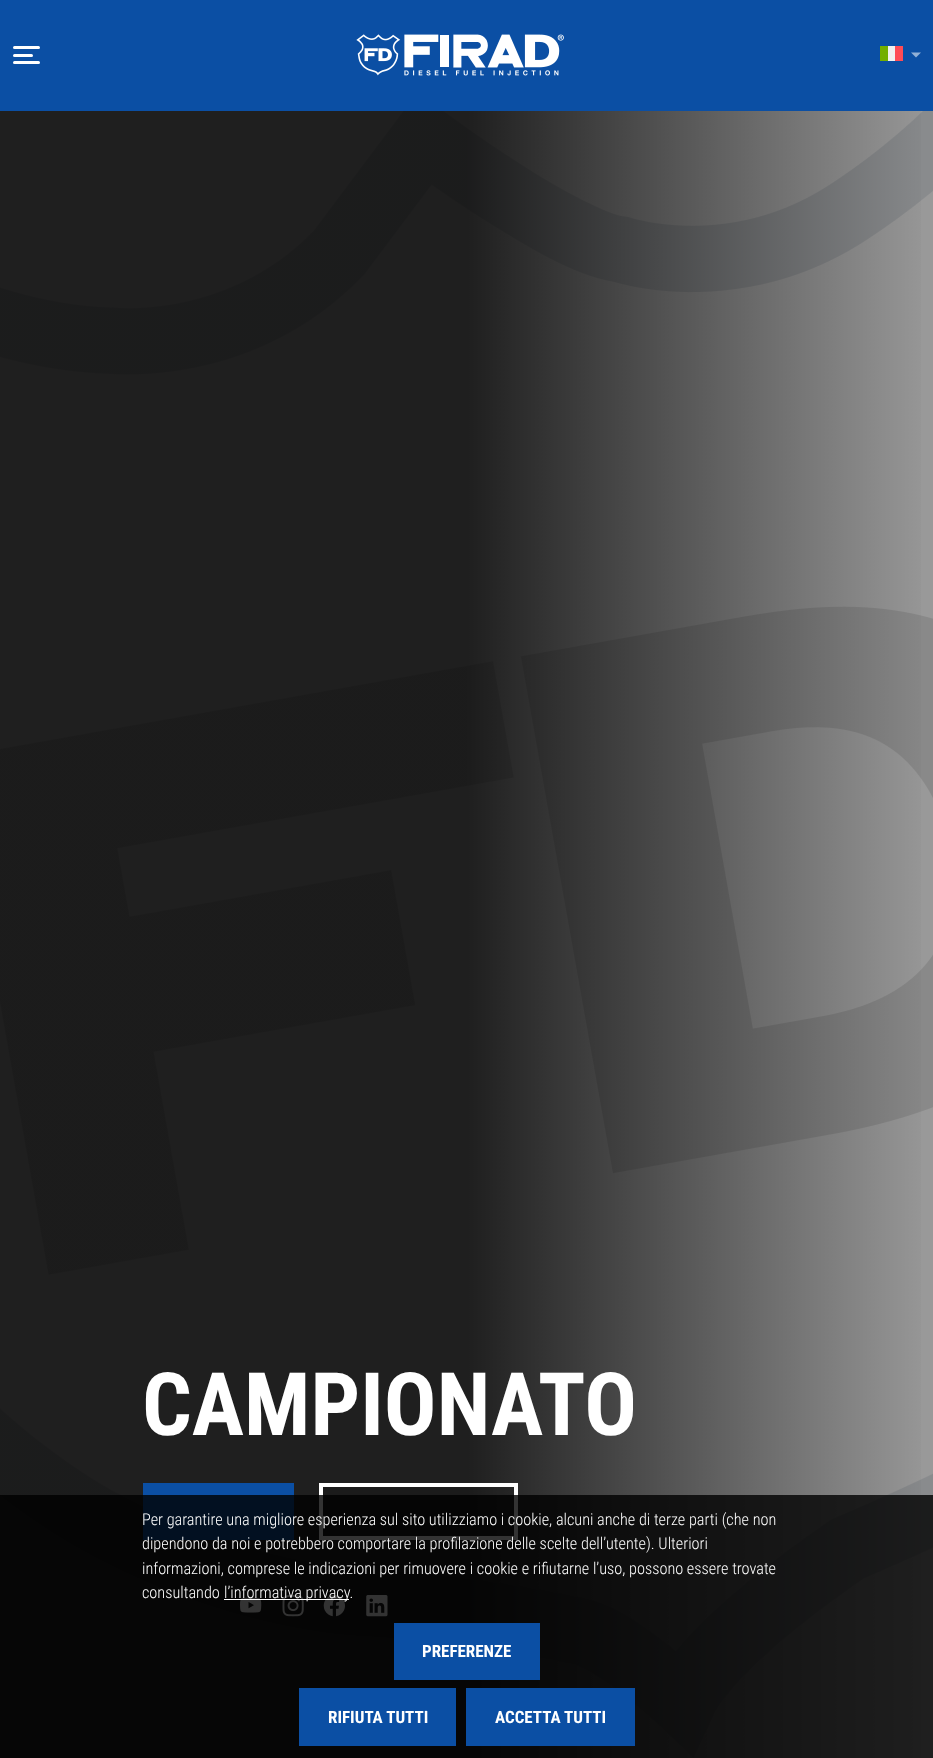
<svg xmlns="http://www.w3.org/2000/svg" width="933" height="1758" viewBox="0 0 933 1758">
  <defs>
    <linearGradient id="g1" gradientUnits="userSpaceOnUse" x1="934" y1="879" x2="0" y2="879"><stop offset="0" stop-color="#000000" stop-opacity="0"/><stop offset="0.5" stop-color="#000000" stop-opacity="0.8"/><stop offset="1" stop-color="#000000" stop-opacity="0.8"/></linearGradient>
  </defs>
  <rect width="100%" height="100%" fill="#999999"/>
  <rect x="0" y="0" width="933" height="111" fill="#0b4fa4"/>
  <rect x="13" y="46" width="27" height="3" rx="1.5" fill="#ffffff"/>
  <rect x="13" y="54" width="20" height="3" rx="1.5" fill="#ffffff"/>
  <rect x="13" y="61" width="27" height="3" rx="1.5" fill="#ffffff"/>
  <image x="356" y="34" width="208" height="42" href="img1.png"/>
  <rect x="880" y="46" width="8" height="15" fill="#73af00"/>
  <rect x="888" y="46" width="7" height="15" fill="#f0f0f0"/>
  <rect x="895" y="46" width="8" height="15" fill="#ff4b55"/>
  <path d="M911 52.5H921L916 57.5Z" fill="#91b0d6"/>
  <image x="0" y="111" width="933" height="1647" href="img2.png"/>
  <rect x="0" y="111" width="921" height="1647" fill="url(#g1)"/>
  <text x="142" y="1435" font-family="Roboto Condensed" font-size="87.5" font-weight="bold" fill="#ffffff">CAMPIONATO</text>
  <rect x="143" y="1483" width="151" height="57" fill="#0b4fa4"/>
  <rect x="321" y="1485" width="195" height="53" fill="#000000" fill-opacity="0.1" stroke="#ffffff" stroke-width="4"/>
  <image x="240" y="1597" width="22" height="16" href="img3.png"/>
  <image x="282" y="1595" width="22" height="22" href="img4.png"/>
  <image x="323" y="1595" width="22" height="22" href="img5.png"/>
  <image x="366" y="1595" width="22" height="22" href="img6.png"/>
  <rect x="0" y="1495" width="933" height="263" fill="#000000" fill-opacity="0.8"/>
  <text x="142" y="1525" font-family="Roboto Condensed" font-size="16.25" font-weight="300" fill="#ffffff">Per garantire una migliore esperienza sul sito utilizziamo i cookie, alcuni anche di terze parti (che non</text>
  <text x="142" y="1549" font-family="Roboto Condensed" font-size="16.25" font-weight="300" fill="#ffffff">dipendono da noi e potrebbero comportare la profilazione delle scelte dell’utente). Ulteriori</text>
  <text x="142" y="1574" font-family="Roboto Condensed" font-size="16.25" font-weight="300" fill="#ffffff">informazioni, comprese le indicazioni per rimuovere i cookie e rifiutarne l’uso, possono essere trovate</text>
  <text x="142" y="1598" font-family="Roboto Condensed" font-size="16.25" font-weight="300" fill="#ffffff">consultando</text>
  <rect x="224" y="1599" width="125" height="1" fill="#ffffff"/>
  <text x="224" y="1598" font-family="Roboto Condensed" font-size="16.25" font-weight="300" fill="#ffffff">l’informativa privacy.</text>
  <rect x="394" y="1623" width="146" height="57" fill="#0b4fa4"/>
  <text x="422" y="1657" font-family="Roboto Condensed" font-size="17" font-weight="bold" fill="#ffffff">PREFERENZE</text>
  <rect x="299" y="1688" width="157" height="58" fill="#0b4fa4"/>
  <text x="328" y="1723" font-family="Roboto Condensed" font-size="17" font-weight="bold" fill="#ffffff">RIFIUTA TUTTI</text>
  <rect x="466" y="1688" width="169" height="58" fill="#0b4fa4"/>
  <text x="495" y="1723" font-family="Roboto Condensed" font-size="17" font-weight="bold" fill="#ffffff">ACCETTA TUTTI</text>
</svg>
